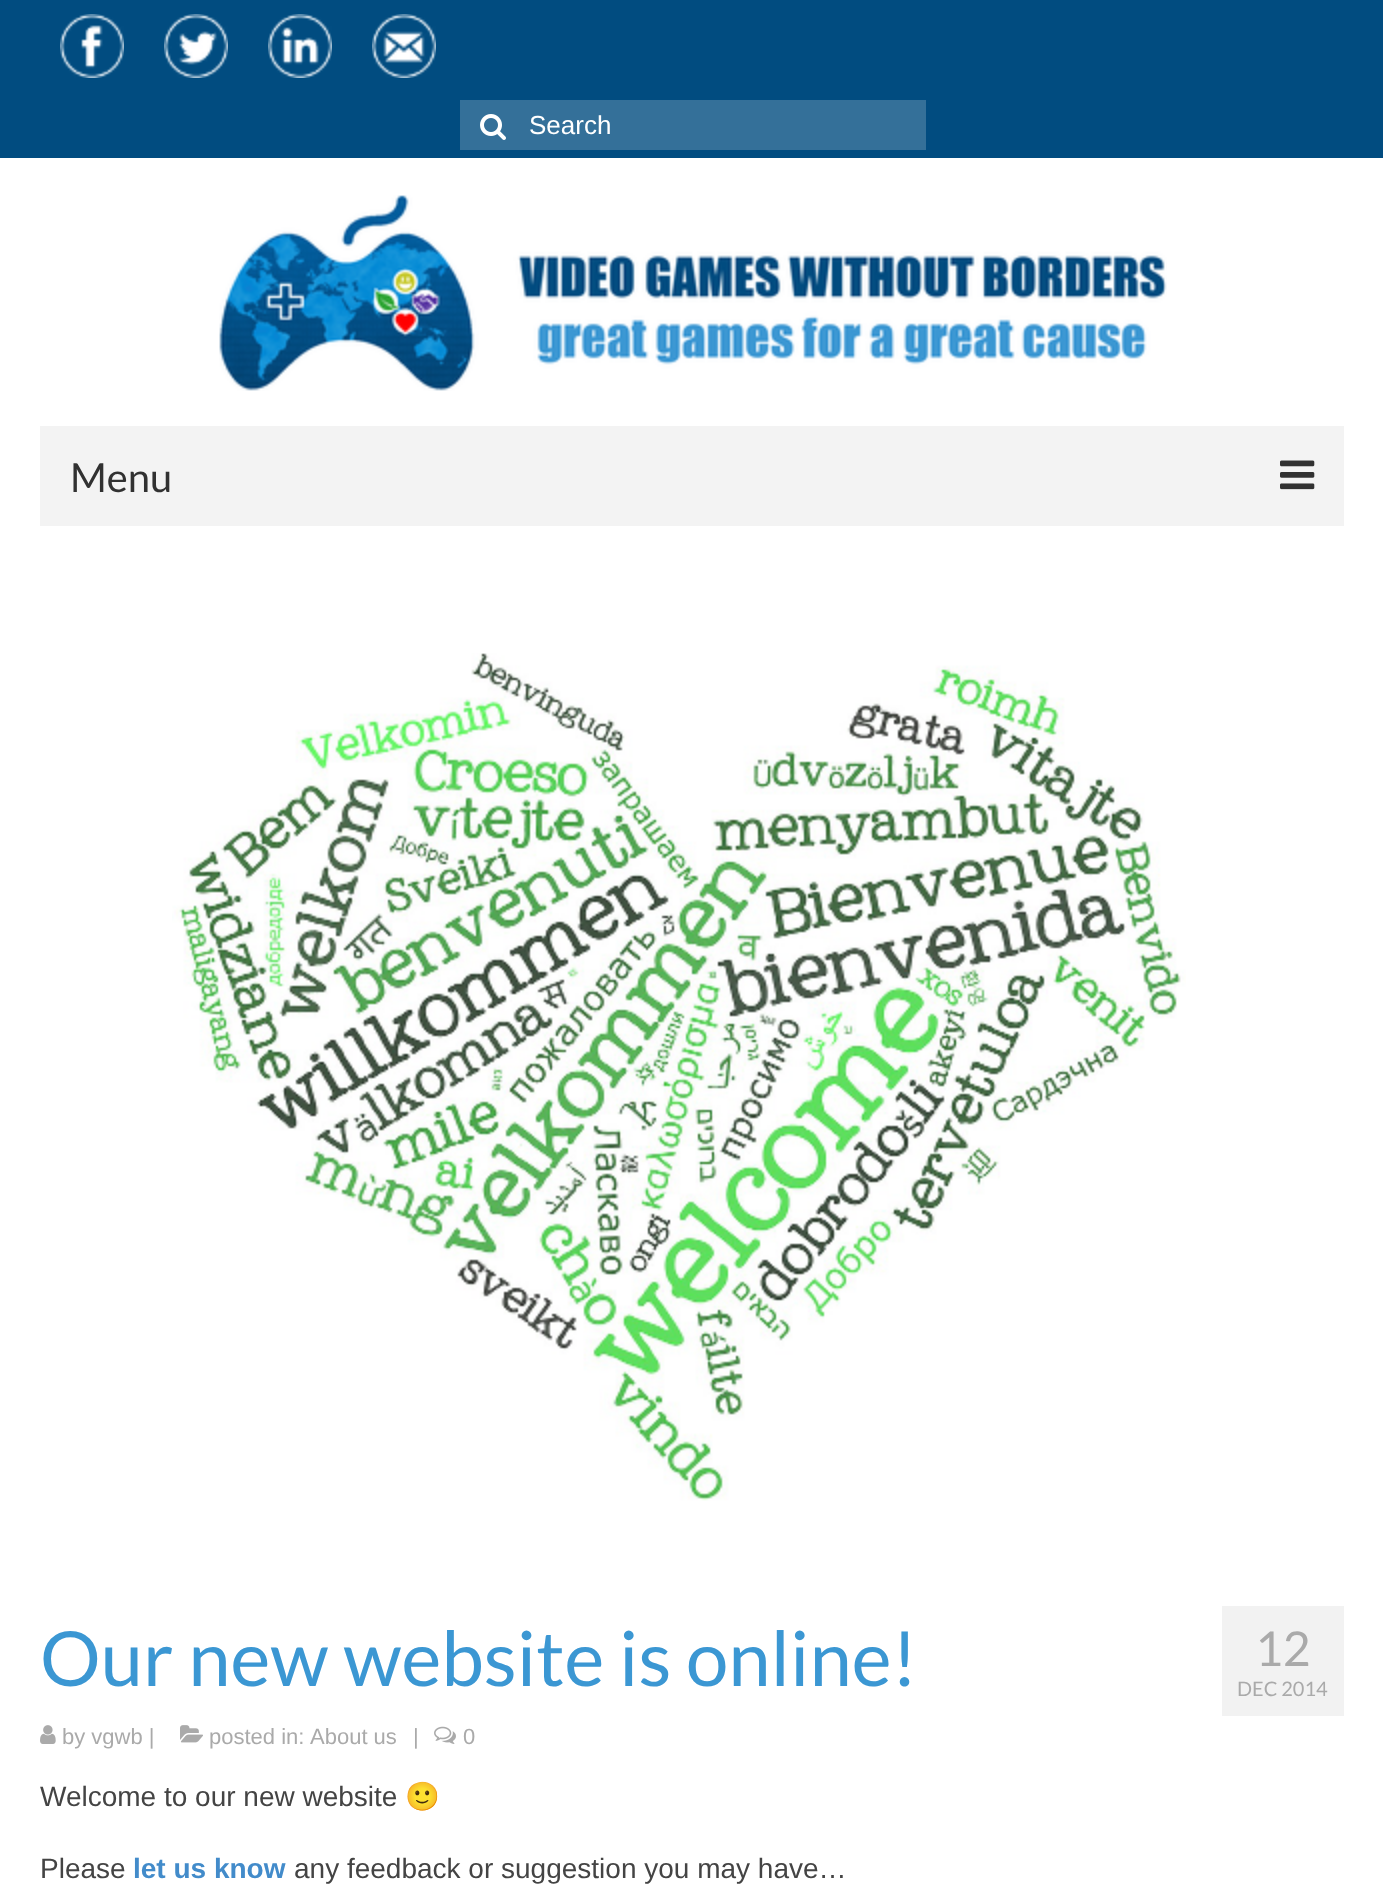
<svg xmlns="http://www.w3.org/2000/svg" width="1383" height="1893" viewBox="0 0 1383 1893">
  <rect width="100%" height="100%" fill="#ffffff"/>
  <rect x="0" y="0" width="1383" height="158" fill="#014c80"/>
  <image x="60" y="14" width="64" height="64" href="img1.png"/>
  <image x="164" y="14" width="64" height="64" href="img2.png"/>
  <image x="268" y="14" width="64" height="64" href="img3.png"/>
  <image x="372" y="14" width="64" height="64" href="img4.png"/>
  <rect x="460" y="100" width="466" height="50" fill="#347099"/>
  <image x="480" y="114" width="26" height="26" href="img5.png"/>
  <text x="529" y="134" font-family="Liberation Sans" font-size="26" fill="#ffffff">Search</text>
  <image x="219" y="195" width="948" height="196" href="img6.png"/>
  <rect x="40" y="426" width="1304" height="100" fill="#f3f3f3"/>
  <text x="70" y="492" font-family="Lato" font-size="40" fill="#313131">Menu</text>
  <image x="1280" y="460" width="35" height="30" href="img7.png"/>
  <image x="172" y="653" width="1014" height="848" href="img8.png"/>
  <text x="40" y="1686" font-family="Lato" font-size="76" fill="#3b97d3">Our new website is online!</text>
  <image x="40" y="1725" width="16" height="19" href="img9.png"/>
  <text x="62" y="1744" font-family="Liberation Sans" font-size="22" fill="#aaaaaa">by vgwb |</text>
  <image x="180" y="1725" width="23" height="18" href="img10.png"/>
  <text x="209" y="1744" font-family="Liberation Sans" font-size="22" fill="#aaaaaa">posted in:</text>
  <text x="310" y="1744" font-family="Liberation Sans" font-size="22" fill="#aaaaaa">About us</text>
  <text x="413" y="1744" font-family="Liberation Sans" font-size="22" fill="#aaaaaa">|</text>
  <image x="434" y="1726" width="22" height="18" href="img11.png"/>
  <text x="463" y="1744" font-family="Liberation Sans" font-size="22" fill="#aaaaaa">0</text>
  <rect x="1222" y="1606" width="122" height="110" fill="#f2f2f2"/>
  <text x="1255" y="1666" font-family="Lato" font-size="48" fill="#aaaaaa">12</text>
  <text x="1237" y="1696" font-family="Lato" font-size="20" fill="#aaaaaa">DEC 2014</text>
  <text x="40" y="1806" font-family="Liberation Sans" font-size="28" fill="#444444">Welcome to our new website</text>
  <text x="405" y="1806" font-family="Noto Color Emoji" font-size="28" fill="#444444">🙂</text>
  <text x="40" y="1878" font-family="Liberation Sans" font-size="28" fill="#444444">Please</text>
  <text x="133" y="1878" font-family="Liberation Sans" font-size="28" font-weight="bold" fill="#428bca">let us know</text>
  <text x="294" y="1878" font-family="Liberation Sans" font-size="28" fill="#444444">any feedback or suggestion you may have…</text>
</svg>
